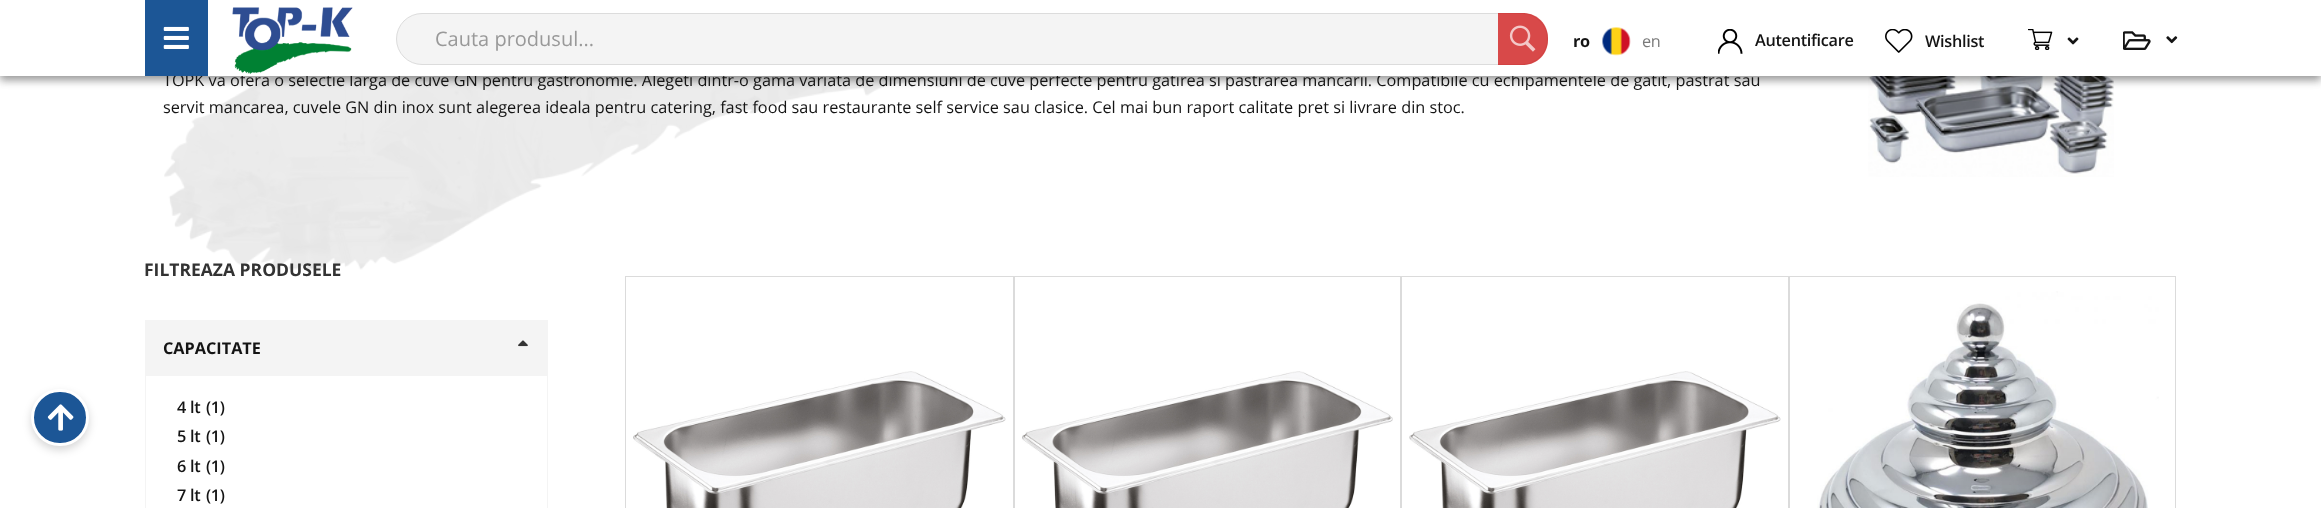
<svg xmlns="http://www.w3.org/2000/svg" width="2321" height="508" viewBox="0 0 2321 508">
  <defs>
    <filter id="blur1" x="-50%" y="-200%" width="200%" height="500%"><feGaussianBlur stdDeviation="4"/></filter>
  </defs>
  <rect width="100%" height="100%" fill="#ffffff"/>
  <image x="164" y="76" width="999" height="194" href="img11.png"/>
  <image x="1868" y="76" width="246" height="101" href="img12.png"/>
  <rect x="0" y="20" width="2321" height="60" fill="#000000" fill-opacity="0.16" filter="url(#blur1)"/>
  <rect x="0" y="4" width="2321" height="76" fill="#000000" fill-opacity="0.29" filter="url(#blur1)"/>
  <text x="163" y="86" font-family="Open Sans" font-size="16.25" fill="#141414">TOPK va ofera o selectie larga de cuve GN pentru gastronomie. Alegeti dintr-o gama variata de dimensiuni de cuve perfecte pentru gatirea si pastrarea mancarii. Compatibile cu echipamentele de gatit, pastrat sau</text>
  <rect x="0" y="0" width="2321" height="76" fill="#ffffff"/>
  <rect x="145" y="0" width="63" height="76" fill="#1c5696"/>
  <image x="163" y="26" width="26" height="23" href="img1.png"/>
  <image x="232" y="7" width="121" height="67" href="img2.png"/>
  <rect x="396.5" y="13.5" width="1151" height="51" rx="25.5" fill="#f4f4f4" stroke="#dcdcdc"/>
  <text x="435" y="46" font-family="Open Sans" font-size="20" fill="#999999">Cauta produsul...</text>
  <path d="M1498 13H1523C1537 13 1548 24 1548 38V40C1548 54 1537 65 1523 65H1498Z" fill="#cc0000" fill-opacity="0.7"/>
  <image x="1509" y="25" width="27" height="27" href="img3.png"/>
  <text x="1573" y="47" font-family="Open Sans" font-size="16.25" font-weight="bold" letter-spacing="-0.3" fill="#141414">ro</text>
  <image x="1602" y="27" width="29" height="29" href="img4.png"/>
  <text x="1642" y="47" font-family="Open Sans" font-size="16.25" letter-spacing="-0.3" fill="#7a7a7a">en</text>
  <image x="1718" y="29" width="25" height="25" href="img5.png"/>
  <text x="1755" y="46" font-family="Open Sans" font-size="16.25" font-weight="600" letter-spacing="-0.3" fill="#141414">Autentificare</text>
  <image x="1885" y="29" width="28" height="24" href="img6.png"/>
  <text x="1925" y="47" font-family="Open Sans" font-size="16.25" font-weight="600" letter-spacing="-0.3" fill="#141414">Wishlist</text>
  <image x="2028" y="29" width="25" height="21" href="img7.png"/>
  <image x="2067" y="37" width="12" height="8" href="img8.png"/>
  <image x="2123" y="31" width="28" height="19" href="img9.png"/>
  <image x="2166" y="36" width="12" height="8" href="img10.png"/>
  <text x="163" y="113" font-family="Open Sans" font-size="16.25" fill="#141414">servit mancarea, cuvele GN din inox sunt alegerea ideala pentru catering, fast food sau restaurante self service sau clasice. Cel mai bun raport calitate pret si livrare din stoc.</text>
  <rect x="31" y="393" width="58" height="57" rx="28.5" fill="#000000" fill-opacity="0.16" filter="url(#blur1)"/>
  <rect x="32.5" y="390.5" width="55" height="54" rx="27" fill="#1c5696" stroke="#ffffff" stroke-width="3"/>
  <image x="47" y="404" width="27" height="27" href="img13.png"/>
  <text x="144" y="276" font-family="Open Sans" font-size="17.5" font-weight="bold" fill="#333333">FILTREAZA PRODUSELE</text>
  <rect x="145" y="320" width="403" height="55" fill="#f4f4f4"/>
  <text x="163" y="354" font-family="Open Sans" font-size="16.25" font-weight="bold" fill="#141414">CAPACITATE</text>
  <image x="518" y="340" width="10" height="7" href="img14.png"/>
  <rect x="145.5" y="375.5" width="402" height="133" fill="none" stroke="#f4f4f4"/>
  <text x="177" y="413" font-family="Open Sans" font-size="16.25" font-weight="600" letter-spacing="-0.3" fill="#141414">4 lt</text>
  <text x="206" y="413" font-family="Open Sans" font-size="16.25" font-weight="600" letter-spacing="-0.3" fill="#141414">(1)</text>
  <text x="177" y="442" font-family="Open Sans" font-size="16.25" font-weight="600" letter-spacing="-0.3" fill="#141414">5 lt</text>
  <text x="206" y="442" font-family="Open Sans" font-size="16.25" font-weight="600" letter-spacing="-0.3" fill="#141414">(1)</text>
  <text x="177" y="472" font-family="Open Sans" font-size="16.25" font-weight="600" letter-spacing="-0.3" fill="#141414">6 lt</text>
  <text x="206" y="472" font-family="Open Sans" font-size="16.25" font-weight="600" letter-spacing="-0.3" fill="#141414">(1)</text>
  <text x="177" y="501" font-family="Open Sans" font-size="16.25" font-weight="600" letter-spacing="-0.3" fill="#141414">7 lt</text>
  <text x="206" y="501" font-family="Open Sans" font-size="16.25" font-weight="600" letter-spacing="-0.3" fill="#141414">(1)</text>
  <rect x="625.5" y="276.5" width="388" height="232" fill="none" stroke="#dbdbdb"/>
  <image x="633" y="371" width="373" height="137" href="img15.png"/>
  <rect x="1014.5" y="276.5" width="386" height="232" fill="none" stroke="#dbdbdb"/>
  <image x="1022" y="371" width="371" height="137" href="img16.png"/>
  <rect x="1401.5" y="276.5" width="387" height="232" fill="none" stroke="#dbdbdb"/>
  <image x="1409" y="371" width="372" height="137" href="img17.png"/>
  <rect x="1789.5" y="276.5" width="386" height="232" fill="none" stroke="#dbdbdb"/>
  <image x="1817" y="291" width="342" height="217" href="img18.png"/>
</svg>
